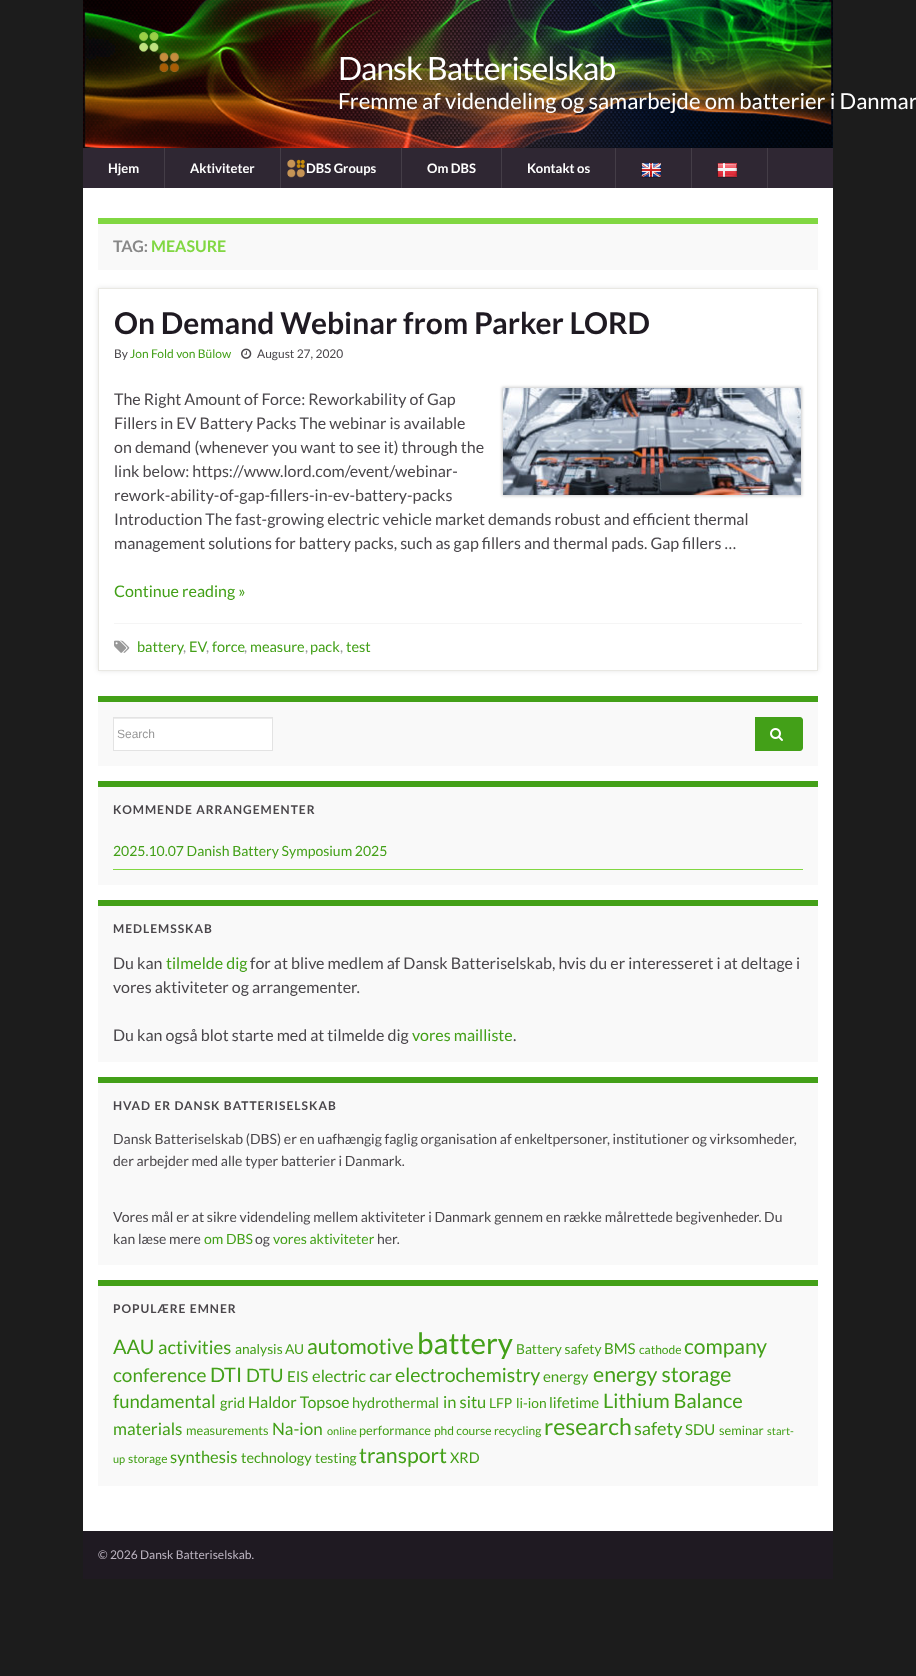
<svg xmlns="http://www.w3.org/2000/svg" width="916" height="1676" viewBox="0 0 916 1676">
  <defs>
    <clipPath id="clip1"><path d="M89 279H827V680H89ZM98 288H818V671H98Z" clip-rule="evenodd"/></clipPath>
    <filter id="blur1" x="-50%" y="-200%" width="200%" height="500%"><feGaussianBlur stdDeviation="2.5"/></filter>
    <filter id="blur2" x="-50%" y="-200%" width="200%" height="500%"><feGaussianBlur stdDeviation="1.5"/></filter>
  </defs>
  <rect width="100%" height="100%" fill="#1c1c1c"/>
  <image x="83" y="0" width="750" height="148" href="img1.png"/>
  <rect x="83" y="148" width="750" height="40" fill="#2f2733"/>
  <text x="338" y="80" font-family="Lato" font-size="32" letter-spacing="-1" fill="#ffffff">Dansk Batteriselskab</text>
  <text x="338" y="109" font-family="Lato" font-size="22" fill="#ffffff">Fremme af videndeling og samarbejde om batterier i Danmar</text>
  <rect x="164" y="148" width="1" height="40" fill="#443d47"/>
  <text x="108" y="173" font-family="Lato" font-size="13" font-weight="bold" fill="#ffffff">Hjem</text>
  <rect x="280" y="148" width="1" height="40" fill="#443d47"/>
  <text x="190" y="173" font-family="Lato" font-size="13" font-weight="bold" fill="#ffffff">Aktiviteter</text>
  <rect x="401" y="148" width="1" height="40" fill="#443d47"/>
  <image x="287" y="159" width="19" height="19" href="img2.png"/>
  <text x="306" y="173" font-family="Lato" font-size="13" font-weight="bold" fill="#ffffff">DBS Groups</text>
  <rect x="501" y="148" width="1" height="40" fill="#443d47"/>
  <text x="427" y="173" font-family="Lato" font-size="13" font-weight="bold" fill="#ffffff">Om DBS</text>
  <rect x="615" y="148" width="1" height="40" fill="#443d47"/>
  <text x="527" y="173" font-family="Lato" font-size="13" font-weight="bold" fill="#ffffff">Kontakt os</text>
  <rect x="691" y="148" width="1" height="40" fill="#443d47"/>
  <image x="641" y="163" width="20" height="15" href="img3.png"/>
  <rect x="767" y="148" width="1" height="40" fill="#443d47"/>
  <image x="717" y="163" width="20" height="15" href="img4.png"/>
  <rect x="83" y="188" width="750" height="1343" fill="#ffffff"/>
  <rect x="98" y="224" width="720" height="46" fill="#f9f9f9"/>
  <rect x="98" y="218" width="720" height="6" fill="#81d742"/>
  <text x="113" y="252" font-family="Lato" font-size="16" font-weight="bold" fill="#888888">TAG:</text>
  <text x="151" y="252" font-family="Lato" font-size="16" font-weight="bold" fill="#81d742">MEASURE</text>
  <g clip-path="url(#clip1)">
    <rect x="98" y="288" width="720" height="383" fill="#000000" fill-opacity="0.1" filter="url(#blur1)"/>
  </g>
  <rect x="98.5" y="288.5" width="719" height="382" fill="none" stroke="#e9e8e3"/>
  <text x="114" y="334" font-family="Lato" font-size="30" font-weight="bold" fill="#1f1a22">On Demand Webinar from Parker LORD</text>
  <text x="114" y="358" font-family="Lato" font-size="12" fill="#4a474b">By</text>
  <text x="130" y="358" font-family="Lato" font-size="12" fill="#43a018">Jon Fold von Bülow</text>
  <image x="241" y="348" width="11" height="11" href="img5.png"/>
  <text x="257" y="358" font-family="Lato" font-size="12" fill="#4a474b">August 27, 2020</text>
  <rect x="502" y="387" width="300" height="109" fill="#000000" fill-opacity="0.2" filter="url(#blur2)"/>
  <image x="503" y="388" width="298" height="107" href="img6.png"/>
  <text x="114" y="405" font-family="Lato" font-size="16" fill="#4a474b">The Right Amount of Force: Reworkability of Gap</text>
  <text x="114" y="429" font-family="Lato" font-size="16" fill="#4a474b">Fillers in EV Battery Packs The webinar is available</text>
  <text x="114" y="453" font-family="Lato" font-size="16" fill="#4a474b">on demand (whenever you want to see it) through the</text>
  <text x="114" y="477" font-family="Lato" font-size="16" fill="#4a474b">link below: https://www.lord.com/event/webinar-</text>
  <text x="114" y="501" font-family="Lato" font-size="16" fill="#4a474b">rework-ability-of-gap-fillers-in-ev-battery-packs</text>
  <text x="114" y="525" font-family="Lato" font-size="16" fill="#4a474b">Introduction The fast-growing electric vehicle market demands robust and efficient thermal</text>
  <text x="114" y="549" font-family="Lato" font-size="16" fill="#4a474b">management solutions for battery packs, such as gap fillers and thermal pads. Gap fillers …</text>
  <text x="114" y="597" font-family="Lato" font-size="16" fill="#43a018">Continue reading »</text>
  <rect x="114" y="623" width="688" height="1" fill="#f5f5f5"/>
  <image x="114" y="640" width="16" height="13" href="img7.png"/>
  <text x="137" y="652" font-family="Lato" font-size="14.5" fill="#43a018">battery</text>
  <text x="183" y="652" font-family="Lato" font-size="14.5" fill="#989898">,</text>
  <text x="189" y="652" font-family="Lato" font-size="14.5" fill="#43a018">EV</text>
  <text x="206" y="652" font-family="Lato" font-size="14.5" fill="#989898">,</text>
  <text x="212" y="652" font-family="Lato" font-size="14.5" fill="#43a018">force</text>
  <text x="244" y="652" font-family="Lato" font-size="14.5" fill="#989898">,</text>
  <text x="250" y="652" font-family="Lato" font-size="14.5" fill="#43a018">measure</text>
  <text x="305" y="652" font-family="Lato" font-size="14.5" fill="#989898">,</text>
  <text x="310" y="652" font-family="Lato" font-size="14.5" fill="#43a018">pack</text>
  <text x="340" y="652" font-family="Lato" font-size="14.5" fill="#989898">,</text>
  <text x="346" y="652" font-family="Lato" font-size="14.5" fill="#43a018">test</text>
  <rect x="98" y="702" width="720" height="64" fill="#f9f9f9"/>
  <rect x="98" y="696" width="720" height="6" fill="#43a018"/>
  <rect x="114" y="719" width="158" height="31" fill="#ffffff"/>
  <rect x="114" y="718" width="158" height="1" fill="#ececec"/>
  <rect x="113.5" y="717.5" width="159" height="33" fill="none" stroke="#e3e3e3"/>
  <text x="117" y="738" font-family="Liberation Sans" font-size="12" fill="#989898">Search</text>
  <path d="M755 717H800C801.5 717 803 718.5 803 720V748C803 749.5 801.5 751 800 751H755Z" fill="#43a018"/>
  <image x="770" y="728" width="13" height="13" href="img8.png"/>
  <rect x="98" y="787" width="720" height="98" fill="#f9f9f9"/>
  <rect x="98" y="781" width="720" height="6" fill="#43a018"/>
  <text x="113" y="814" font-family="Lato" font-size="12" font-weight="bold" letter-spacing="1" fill="#4a474b">KOMMENDE ARRANGEMENTER</text>
  <rect x="113" y="869" width="690" height="1" fill="#81d742"/>
  <text x="113" y="856" font-family="Lato" font-size="14" fill="#43a018">2025.10.07 Danish Battery Symposium 2025</text>
  <rect x="98" y="906" width="720" height="156" fill="#f9f9f9"/>
  <rect x="98" y="900" width="720" height="6" fill="#43a018"/>
  <text x="113" y="933" font-family="Lato" font-size="12" font-weight="bold" letter-spacing="1" fill="#4a474b">MEDLEMSSKAB</text>
  <text x="113" y="969" font-family="Lato" font-size="16" fill="#4a474b">Du kan</text>
  <text x="166" y="969" font-family="Lato" font-size="16" fill="#43a018">tilmelde dig</text>
  <text x="250" y="969" font-family="Lato" font-size="16" fill="#4a474b">for at blive medlem af Dansk Batteriselskab, hvis du er interesseret i at deltage i</text>
  <text x="113" y="993" font-family="Lato" font-size="16" fill="#4a474b">vores aktiviteter og arrangementer.</text>
  <text x="113" y="1041" font-family="Lato" font-size="16" fill="#4a474b">Du kan også blot starte med at tilmelde dig</text>
  <text x="412" y="1041" font-family="Lato" font-size="16" fill="#43a018">vores mailliste</text>
  <text x="513" y="1041" font-family="Lato" font-size="16" fill="#4a474b">.</text>
  <rect x="98" y="1083" width="720" height="182" fill="#f9f9f9"/>
  <rect x="98" y="1077" width="720" height="6" fill="#43a018"/>
  <text x="113" y="1110" font-family="Lato" font-size="12" font-weight="bold" letter-spacing="1" fill="#4a474b">HVAD ER DANSK BATTERISELSKAB</text>
  <text x="113" y="1144" font-family="Lato" font-size="14" fill="#4a474b">Dansk Batteriselskab (DBS) er en uafhængig faglig organisation af enkeltpersoner, institutioner og virksomheder,</text>
  <text x="113" y="1166" font-family="Lato" font-size="14" fill="#4a474b">der arbejder med alle typer batterier i Danmark.</text>
  <text x="113" y="1222" font-family="Lato" font-size="14" fill="#4a474b">Vores mål er at sikre videndeling mellem aktiviteter i Danmark gennem en række målrettede begivenheder. Du</text>
  <text x="113" y="1244" font-family="Lato" font-size="14" fill="#4a474b">kan læse mere</text>
  <text x="204" y="1244" font-family="Lato" font-size="14" fill="#43a018">om DBS</text>
  <text x="255" y="1244" font-family="Lato" font-size="14" fill="#4a474b">og</text>
  <text x="273" y="1244" font-family="Lato" font-size="14" fill="#43a018">vores aktiviteter</text>
  <text x="377" y="1244" font-family="Lato" font-size="14" fill="#4a474b">her.</text>
  <rect x="98" y="1286" width="720" height="200" fill="#f9f9f9"/>
  <rect x="98" y="1280" width="720" height="6" fill="#43a018"/>
  <text x="113" y="1313" font-family="Lato" font-size="12" font-weight="bold" letter-spacing="1" fill="#4a474b">POPULÆRE EMNER</text>
  <text x="113" y="1354" font-family="Lato" font-size="20" fill="#43a018">AAU</text>
  <text x="158" y="1354" font-family="Lato" font-size="18.5" fill="#43a018">activities</text>
  <text x="235" y="1354" font-family="Lato" font-size="13.75" fill="#43a018">analysis</text>
  <text x="285" y="1354" font-family="Lato" font-size="13.75" fill="#43a018">AU</text>
  <text x="307" y="1354" font-family="Lato" font-size="21.25" fill="#43a018">automotive</text>
  <text x="417" y="1354" font-family="Lato" font-size="29.5" fill="#43a018">battery</text>
  <text x="516" y="1354" font-family="Lato" font-size="13.75" fill="#43a018">Battery safety</text>
  <text x="604" y="1354" font-family="Lato" font-size="15" fill="#43a018">BMS</text>
  <text x="639" y="1354" font-family="Lato" font-size="12" fill="#43a018">cathode</text>
  <text x="684" y="1354" font-family="Lato" font-size="21" fill="#43a018">company</text>
  <text x="113" y="1382" font-family="Lato" font-size="19" fill="#43a018">conference</text>
  <text x="210" y="1382" font-family="Lato" font-size="20" fill="#43a018">DTI</text>
  <text x="246" y="1382" font-family="Lato" font-size="18.5" fill="#43a018">DTU</text>
  <text x="287" y="1382" font-family="Lato" font-size="15" fill="#43a018">EIS</text>
  <text x="312" y="1382" font-family="Lato" font-size="16.5" fill="#43a018">electric car</text>
  <text x="395" y="1382" font-family="Lato" font-size="19.5" fill="#43a018">electrochemistry</text>
  <text x="543" y="1382" font-family="Lato" font-size="15" fill="#43a018">energy</text>
  <text x="593" y="1382" font-family="Lato" font-size="21.25" fill="#43a018">energy storage</text>
  <text x="113" y="1408" font-family="Lato" font-size="18.5" fill="#43a018">fundamental</text>
  <text x="220" y="1408" font-family="Lato" font-size="14.5" fill="#43a018">grid</text>
  <text x="248" y="1408" font-family="Lato" font-size="16" fill="#43a018">Haldor Topsoe</text>
  <text x="352" y="1408" font-family="Lato" font-size="14.5" fill="#43a018">hydrothermal</text>
  <text x="443" y="1408" font-family="Lato" font-size="16.5" fill="#43a018">in situ</text>
  <text x="489" y="1408" font-family="Lato" font-size="13.75" fill="#43a018">LFP</text>
  <text x="516" y="1408" font-family="Lato" font-size="13.75" fill="#43a018">li-ion</text>
  <text x="549" y="1408" font-family="Lato" font-size="15" fill="#43a018">lifetime</text>
  <text x="603" y="1408" font-family="Lato" font-size="20" fill="#43a018">Lithium Balance</text>
  <text x="113" y="1435" font-family="Lato" font-size="17" fill="#43a018">materials</text>
  <text x="186" y="1435" font-family="Lato" font-size="12.75" fill="#43a018">measurements</text>
  <text x="272" y="1435" font-family="Lato" font-size="17" fill="#43a018">Na-ion</text>
  <text x="327" y="1435" font-family="Lato" font-size="11" fill="#43a018">online</text>
  <text x="359" y="1435" font-family="Lato" font-size="12.75" fill="#43a018">performance</text>
  <text x="434" y="1435" font-family="Lato" font-size="12" fill="#43a018">phd course</text>
  <text x="494" y="1435" font-family="Lato" font-size="12" fill="#43a018">recycling</text>
  <text x="544" y="1435" font-family="Lato" font-size="23" fill="#43a018">research</text>
  <text x="634" y="1435" font-family="Lato" font-size="18" fill="#43a018">safety</text>
  <text x="685" y="1435" font-family="Lato" font-size="15" fill="#43a018">SDU</text>
  <text x="719" y="1435" font-family="Lato" font-size="12.75" fill="#43a018">seminar</text>
  <text x="767" y="1435" font-family="Lato" font-size="11" fill="#43a018">start-</text>
  <text x="113" y="1463" font-family="Lato" font-size="11" fill="#43a018">up</text>
  <text x="128" y="1463" font-family="Lato" font-size="12" fill="#43a018">storage</text>
  <text x="170" y="1463" font-family="Lato" font-size="16.5" fill="#43a018">synthesis</text>
  <text x="241" y="1463" font-family="Lato" font-size="14.5" fill="#43a018">technology</text>
  <text x="315" y="1463" font-family="Lato" font-size="13.75" fill="#43a018">testing</text>
  <text x="359" y="1463" font-family="Lato" font-size="21.25" fill="#43a018">transport</text>
  <text x="450" y="1463" font-family="Lato" font-size="14.5" fill="#43a018">XRD</text>
  <rect x="83" y="1531" width="750" height="48" fill="#1f1a22"/>
  <text x="98" y="1559" font-family="Lato" font-size="12" fill="#bcb4c1">© 2026 Dansk Batteriselskab.</text>
</svg>
